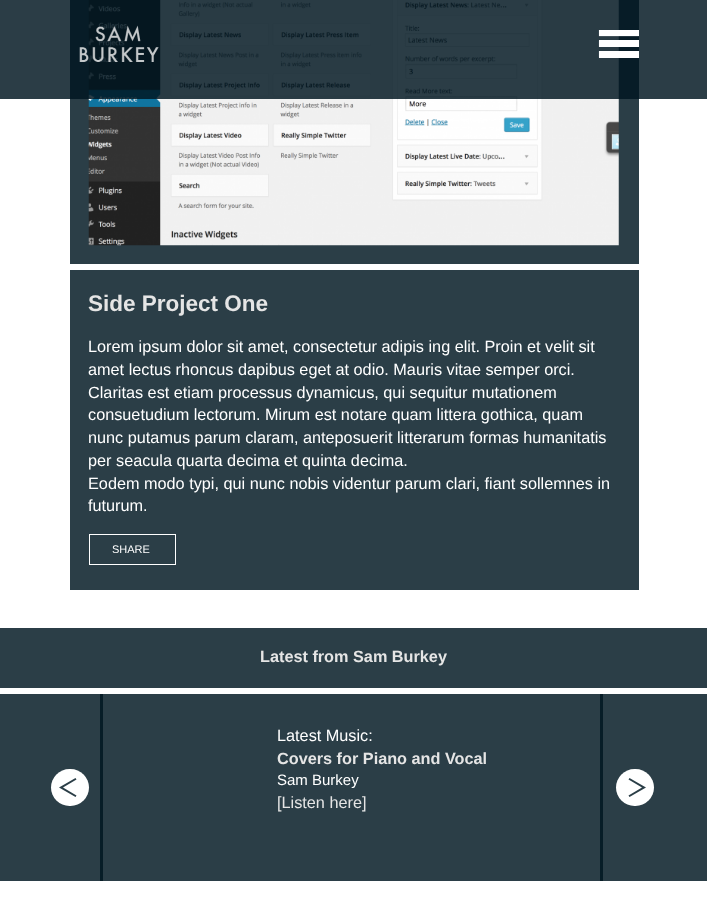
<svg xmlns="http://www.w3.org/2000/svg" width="707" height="914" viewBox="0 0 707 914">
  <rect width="100%" height="100%" fill="#ffffff"/>
  <rect x="70" y="0" width="569" height="264" fill="#2b3e47"/>
  <image x="88" y="0" width="531" height="246" href="img3.png"/>
  <rect x="0" y="0" width="707" height="99" fill="#001621" fill-opacity="0.83"/>
  <image x="79" y="25" width="80" height="37" href="img1.png"/>
  <image x="598" y="30" width="41" height="28" href="img2.png"/>
  <path d="M639 36H599V30H639ZM639 40H599V47H639ZM639 51H599V58H639Z" fill="#ffffff"/>
  <rect x="70" y="270" width="569" height="320" fill="#2b3e47"/>
  <text x="88" y="311" font-family="Liberation Sans" font-size="22.5" font-weight="bold" fill="#e5e5e5">Side Project One</text>
  <text x="88" y="352" font-family="Liberation Sans" font-size="16.25" fill="#ffffff">Lorem ipsum dolor sit amet, consectetur adipis ing elit. Proin et velit sit</text>
  <text x="88" y="375" font-family="Liberation Sans" font-size="16.25" fill="#ffffff">amet lectus rhoncus dapibus eget at odio. Mauris vitae semper orci.</text>
  <text x="88" y="398" font-family="Liberation Sans" font-size="16.25" fill="#ffffff">Claritas est etiam processus dynamicus, qui sequitur mutationem</text>
  <text x="88" y="420" font-family="Liberation Sans" font-size="16.25" fill="#ffffff">consuetudium lectorum. Mirum est notare quam littera gothica, quam</text>
  <text x="88" y="443" font-family="Liberation Sans" font-size="16.25" fill="#ffffff">nunc putamus parum claram, anteposuerit litterarum formas humanitatis</text>
  <text x="88" y="466" font-family="Liberation Sans" font-size="16.25" fill="#ffffff">per seacula quarta decima et quinta decima.</text>
  <text x="88" y="489" font-family="Liberation Sans" font-size="16.25" fill="#ffffff">Eodem modo typi, qui nunc nobis videntur parum clari, fiant sollemnes in</text>
  <text x="88" y="511" font-family="Liberation Sans" font-size="16.25" fill="#ffffff">futurum.</text>
  <rect x="89.5" y="534.5" width="86" height="30" fill="none" stroke="#ffffff"/>
  <text x="112" y="553" font-family="Liberation Sans" font-size="11" fill="#ffffff">SHARE</text>
  <rect x="0" y="628" width="707" height="60" fill="#2b3e47"/>
  <text x="260" y="662" font-family="Liberation Sans" font-size="16.25" font-weight="bold" fill="#e5e5e5">Latest from Sam Burkey</text>
  <rect x="0" y="694" width="707" height="187" fill="#2b3e47"/>
  <rect x="51" y="769" width="38" height="37" rx="18.5" fill="#ffffff"/>
  <path d="M75.5 797L59 787.5L75.5 778L76.5 779.5L63 787.5L76.5 795.5Z" fill="#2b3e47"/>
  <rect x="100" y="694" width="3" height="187" fill="#071d27"/>
  <rect x="600" y="694" width="3" height="187" fill="#071d27"/>
  <text x="277" y="741" font-family="Liberation Sans" font-size="16.25" fill="#ffffff">Latest Music:</text>
  <text x="277" y="764" font-family="Liberation Sans" font-size="16.25" font-weight="bold" fill="#e5e5e5">Covers for Piano and Vocal</text>
  <text x="277" y="785" font-family="Liberation Sans" font-size="15" fill="#ffffff">Sam Burkey</text>
  <text x="277" y="808" font-family="Liberation Sans" font-size="16.25" fill="#e5e5e5">[Listen here]</text>
  <rect x="616" y="769" width="38" height="37" rx="18.5" fill="#ffffff"/>
  <path d="M629.5 778L646 787.5L629.5 797L628.5 795.5L642 787.5L628.5 779.5Z" fill="#2b3e47"/>
</svg>
